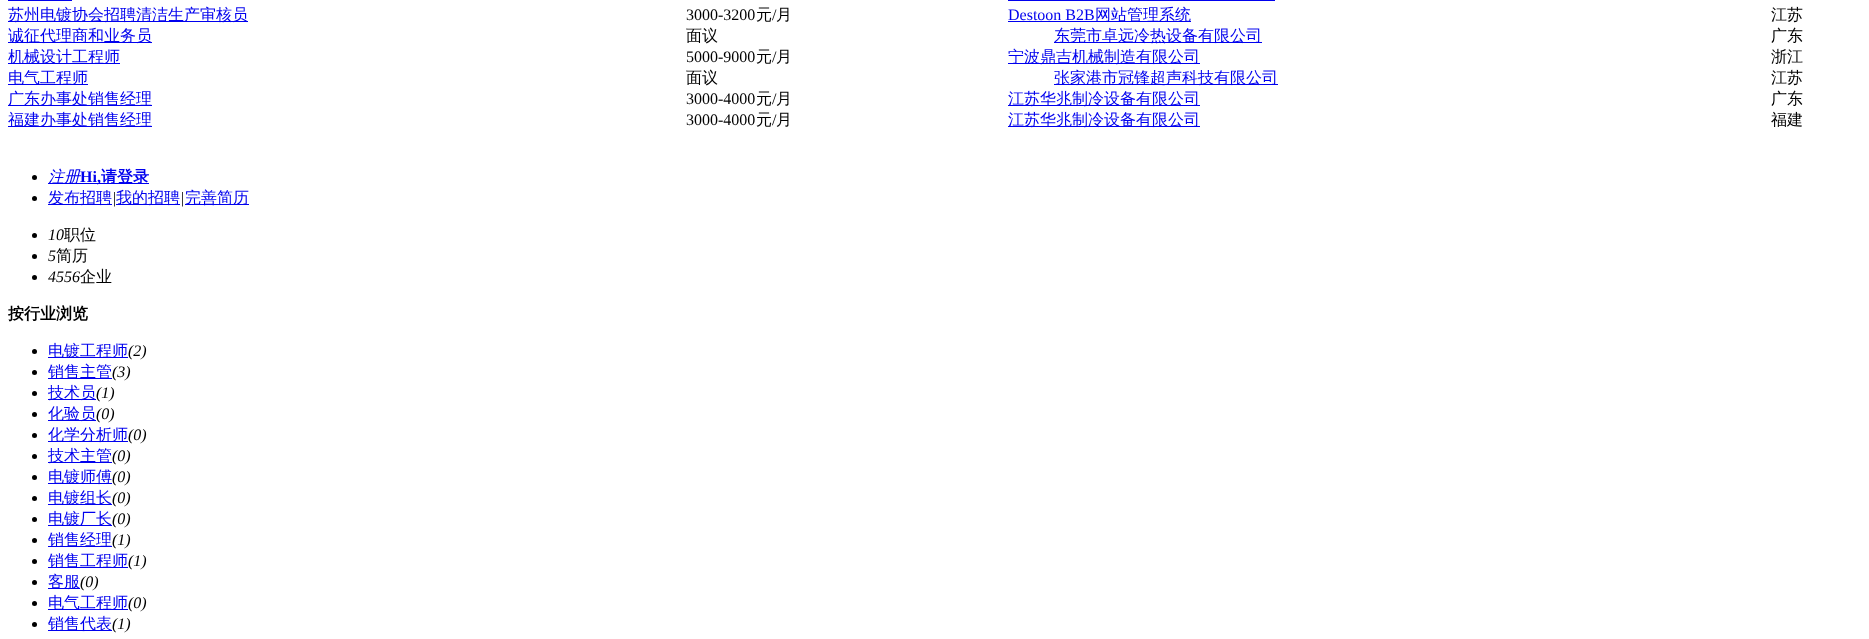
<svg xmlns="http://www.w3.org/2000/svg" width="1869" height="639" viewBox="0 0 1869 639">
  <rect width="100%" height="100%" fill="#ffffff"/>
  <rect x="8" y="0" width="64" height="1" fill="#0000ee"/>
  <rect x="1008" y="0" width="267" height="1" fill="#0000ee"/>
  <rect x="8" y="21" width="240" height="1" fill="#0000ee"/>
  <text x="8" y="20" font-family="WenQuanYi Zen Hei" font-size="16" font-weight="500" fill="#0000ee">苏州电镀协会招聘清洁生产审核员</text>
  <text x="686" y="20" font-family="Liberation Serif" font-size="16" fill="#000000">3000-3200</text>
  <text x="756" y="20" font-family="WenQuanYi Zen Hei" font-size="16" font-weight="500" fill="#000000">元</text>
  <text x="772" y="20" font-family="Liberation Serif" font-size="16" fill="#000000">/</text>
  <text x="776" y="20" font-family="WenQuanYi Zen Hei" font-size="16" font-weight="500" fill="#000000">月</text>
  <text x="1008" y="20" font-family="Liberation Serif" font-size="16" fill="#0000ee">Destoon B2B</text>
  <rect x="1008" y="21" width="183" height="1" fill="#0000ee"/>
  <text x="1095" y="20" font-family="WenQuanYi Zen Hei" font-size="16" font-weight="500" fill="#0000ee">网站管理系统</text>
  <text x="1771" y="20" font-family="WenQuanYi Zen Hei" font-size="16" font-weight="500" fill="#000000">江苏</text>
  <rect x="8" y="42" width="144" height="1" fill="#0000ee"/>
  <text x="8" y="41" font-family="WenQuanYi Zen Hei" font-size="16" font-weight="500" fill="#0000ee">诚征代理商和业务员</text>
  <text x="686" y="41" font-family="WenQuanYi Zen Hei" font-size="16" font-weight="500" fill="#000000">面议</text>
  <rect x="1054" y="42" width="208" height="1" fill="#0000ee"/>
  <text x="1054" y="41" font-family="WenQuanYi Zen Hei" font-size="16" font-weight="500" fill="#0000ee">东莞市卓远冷热设备有限公司</text>
  <text x="1771" y="41" font-family="WenQuanYi Zen Hei" font-size="16" font-weight="500" fill="#000000">广东</text>
  <rect x="8" y="63" width="112" height="1" fill="#0000ee"/>
  <text x="8" y="62" font-family="WenQuanYi Zen Hei" font-size="16" font-weight="500" fill="#0000ee">机械设计工程师</text>
  <text x="686" y="62" font-family="Liberation Serif" font-size="16" fill="#000000">5000-9000</text>
  <text x="756" y="62" font-family="WenQuanYi Zen Hei" font-size="16" font-weight="500" fill="#000000">元</text>
  <text x="772" y="62" font-family="Liberation Serif" font-size="16" fill="#000000">/</text>
  <text x="776" y="62" font-family="WenQuanYi Zen Hei" font-size="16" font-weight="500" fill="#000000">月</text>
  <rect x="1008" y="63" width="192" height="1" fill="#0000ee"/>
  <text x="1008" y="62" font-family="WenQuanYi Zen Hei" font-size="16" font-weight="500" fill="#0000ee">宁波鼎吉机械制造有限公司</text>
  <text x="1771" y="62" font-family="WenQuanYi Zen Hei" font-size="16" font-weight="500" fill="#000000">浙江</text>
  <rect x="8" y="84" width="80" height="1" fill="#0000ee"/>
  <text x="8" y="83" font-family="WenQuanYi Zen Hei" font-size="16" font-weight="500" fill="#0000ee">电气工程师</text>
  <text x="686" y="83" font-family="WenQuanYi Zen Hei" font-size="16" font-weight="500" fill="#000000">面议</text>
  <rect x="1054" y="84" width="224" height="1" fill="#0000ee"/>
  <text x="1054" y="83" font-family="WenQuanYi Zen Hei" font-size="16" font-weight="500" fill="#0000ee">张家港市冠锋超声科技有限公司</text>
  <text x="1771" y="83" font-family="WenQuanYi Zen Hei" font-size="16" font-weight="500" fill="#000000">江苏</text>
  <rect x="8" y="105" width="144" height="1" fill="#0000ee"/>
  <text x="8" y="104" font-family="WenQuanYi Zen Hei" font-size="16" font-weight="500" fill="#0000ee">广东办事处销售经理</text>
  <text x="686" y="104" font-family="Liberation Serif" font-size="16" fill="#000000">3000-4000</text>
  <text x="756" y="104" font-family="WenQuanYi Zen Hei" font-size="16" font-weight="500" fill="#000000">元</text>
  <text x="772" y="104" font-family="Liberation Serif" font-size="16" fill="#000000">/</text>
  <text x="776" y="104" font-family="WenQuanYi Zen Hei" font-size="16" font-weight="500" fill="#000000">月</text>
  <rect x="1008" y="105" width="192" height="1" fill="#0000ee"/>
  <text x="1008" y="104" font-family="WenQuanYi Zen Hei" font-size="16" font-weight="500" fill="#0000ee">江苏华兆制冷设备有限公司</text>
  <text x="1771" y="104" font-family="WenQuanYi Zen Hei" font-size="16" font-weight="500" fill="#000000">广东</text>
  <rect x="8" y="126" width="144" height="1" fill="#0000ee"/>
  <text x="8" y="125" font-family="WenQuanYi Zen Hei" font-size="16" font-weight="500" fill="#0000ee">福建办事处销售经理</text>
  <text x="686" y="125" font-family="Liberation Serif" font-size="16" fill="#000000">3000-4000</text>
  <text x="756" y="125" font-family="WenQuanYi Zen Hei" font-size="16" font-weight="500" fill="#000000">元</text>
  <text x="772" y="125" font-family="Liberation Serif" font-size="16" fill="#000000">/</text>
  <text x="776" y="125" font-family="WenQuanYi Zen Hei" font-size="16" font-weight="500" fill="#000000">月</text>
  <rect x="1008" y="126" width="192" height="1" fill="#0000ee"/>
  <text x="1008" y="125" font-family="WenQuanYi Zen Hei" font-size="16" font-weight="500" fill="#0000ee">江苏华兆制冷设备有限公司</text>
  <text x="1771" y="125" font-family="WenQuanYi Zen Hei" font-size="16" font-weight="500" fill="#000000">福建</text>
  <circle cx="34.5" cy="177.5" r="2.5" fill="#000000"/>
  <rect x="48" y="183" width="32" height="1" fill="#0000ee"/>
  <text x="48" y="182" font-family="WenQuanYi Zen Hei" font-size="16" font-weight="500" font-style="italic" fill="#0000ee">注册</text>
  <rect x="80" y="183" width="69" height="1" fill="#0000ee"/>
  <text x="80" y="182" font-family="Liberation Serif" font-size="16" font-weight="bold" fill="#0000ee">Hi,</text>
  <text x="101" y="182" font-family="WenQuanYi Zen Hei" font-size="16" font-weight="bold" fill="#0000ee">请登录</text>
  <circle cx="34.5" cy="198.5" r="2.5" fill="#000000"/>
  <rect x="48" y="204" width="64" height="1" fill="#0000ee"/>
  <text x="48" y="203" font-family="WenQuanYi Zen Hei" font-size="16" font-weight="500" fill="#0000ee">发布招聘</text>
  <text x="112" y="203" font-family="Liberation Serif" font-size="16" font-style="italic" fill="#000000">|</text>
  <rect x="116" y="204" width="64" height="1" fill="#0000ee"/>
  <text x="116" y="203" font-family="WenQuanYi Zen Hei" font-size="16" font-weight="500" fill="#0000ee">我的招聘</text>
  <text x="180" y="203" font-family="Liberation Serif" font-size="16" font-style="italic" fill="#000000">|</text>
  <rect x="185" y="204" width="64" height="1" fill="#0000ee"/>
  <text x="185" y="203" font-family="WenQuanYi Zen Hei" font-size="16" font-weight="500" fill="#0000ee">完善简历</text>
  <circle cx="34.5" cy="235.5" r="2.5" fill="#000000"/>
  <text x="48" y="240" font-family="Liberation Serif" font-size="16" font-style="italic" fill="#000000">10</text>
  <text x="64" y="240" font-family="WenQuanYi Zen Hei" font-size="16" font-weight="500" fill="#000000">职位</text>
  <circle cx="34.5" cy="256.5" r="2.5" fill="#000000"/>
  <text x="48" y="261" font-family="Liberation Serif" font-size="16" font-style="italic" fill="#000000">5</text>
  <text x="56" y="261" font-family="WenQuanYi Zen Hei" font-size="16" font-weight="500" fill="#000000">简历</text>
  <circle cx="34.5" cy="277.5" r="2.5" fill="#000000"/>
  <text x="48" y="282" font-family="Liberation Serif" font-size="16" font-style="italic" fill="#000000">4556</text>
  <text x="80" y="282" font-family="WenQuanYi Zen Hei" font-size="16" font-weight="500" fill="#000000">企业</text>
  <text x="8" y="319" font-family="WenQuanYi Zen Hei" font-size="16" font-weight="bold" fill="#000000">按行业浏览</text>
  <circle cx="34.5" cy="351.5" r="2.5" fill="#000000"/>
  <rect x="48" y="357" width="80" height="1" fill="#0000ee"/>
  <text x="48" y="356" font-family="WenQuanYi Zen Hei" font-size="16" font-weight="500" fill="#0000ee">电镀工程师</text>
  <text x="128" y="356" font-family="Liberation Serif" font-size="16" font-style="italic" fill="#000000">(2)</text>
  <circle cx="34.5" cy="372.5" r="2.5" fill="#000000"/>
  <rect x="48" y="378" width="64" height="1" fill="#0000ee"/>
  <text x="48" y="377" font-family="WenQuanYi Zen Hei" font-size="16" font-weight="500" fill="#0000ee">销售主管</text>
  <text x="112" y="377" font-family="Liberation Serif" font-size="16" font-style="italic" fill="#000000">(3)</text>
  <circle cx="34.5" cy="393.5" r="2.5" fill="#000000"/>
  <rect x="48" y="399" width="48" height="1" fill="#0000ee"/>
  <text x="48" y="398" font-family="WenQuanYi Zen Hei" font-size="16" font-weight="500" fill="#0000ee">技术员</text>
  <text x="96" y="398" font-family="Liberation Serif" font-size="16" font-style="italic" fill="#000000">(1)</text>
  <circle cx="34.5" cy="414.5" r="2.5" fill="#000000"/>
  <rect x="48" y="420" width="48" height="1" fill="#0000ee"/>
  <text x="48" y="419" font-family="WenQuanYi Zen Hei" font-size="16" font-weight="500" fill="#0000ee">化验员</text>
  <text x="96" y="419" font-family="Liberation Serif" font-size="16" font-style="italic" fill="#000000">(0)</text>
  <circle cx="34.5" cy="435.5" r="2.5" fill="#000000"/>
  <rect x="48" y="441" width="80" height="1" fill="#0000ee"/>
  <text x="48" y="440" font-family="WenQuanYi Zen Hei" font-size="16" font-weight="500" fill="#0000ee">化学分析师</text>
  <text x="128" y="440" font-family="Liberation Serif" font-size="16" font-style="italic" fill="#000000">(0)</text>
  <circle cx="34.5" cy="456.5" r="2.5" fill="#000000"/>
  <rect x="48" y="462" width="64" height="1" fill="#0000ee"/>
  <text x="48" y="461" font-family="WenQuanYi Zen Hei" font-size="16" font-weight="500" fill="#0000ee">技术主管</text>
  <text x="112" y="461" font-family="Liberation Serif" font-size="16" font-style="italic" fill="#000000">(0)</text>
  <circle cx="34.5" cy="477.5" r="2.5" fill="#000000"/>
  <rect x="48" y="483" width="64" height="1" fill="#0000ee"/>
  <text x="48" y="482" font-family="WenQuanYi Zen Hei" font-size="16" font-weight="500" fill="#0000ee">电镀师傅</text>
  <text x="112" y="482" font-family="Liberation Serif" font-size="16" font-style="italic" fill="#000000">(0)</text>
  <circle cx="34.5" cy="498.5" r="2.5" fill="#000000"/>
  <rect x="48" y="504" width="64" height="1" fill="#0000ee"/>
  <text x="48" y="503" font-family="WenQuanYi Zen Hei" font-size="16" font-weight="500" fill="#0000ee">电镀组长</text>
  <text x="112" y="503" font-family="Liberation Serif" font-size="16" font-style="italic" fill="#000000">(0)</text>
  <circle cx="34.5" cy="519.5" r="2.5" fill="#000000"/>
  <rect x="48" y="525" width="64" height="1" fill="#0000ee"/>
  <text x="48" y="524" font-family="WenQuanYi Zen Hei" font-size="16" font-weight="500" fill="#0000ee">电镀厂长</text>
  <text x="112" y="524" font-family="Liberation Serif" font-size="16" font-style="italic" fill="#000000">(0)</text>
  <circle cx="34.5" cy="540.5" r="2.5" fill="#000000"/>
  <rect x="48" y="546" width="64" height="1" fill="#0000ee"/>
  <text x="48" y="545" font-family="WenQuanYi Zen Hei" font-size="16" font-weight="500" fill="#0000ee">销售经理</text>
  <text x="112" y="545" font-family="Liberation Serif" font-size="16" font-style="italic" fill="#000000">(1)</text>
  <circle cx="34.5" cy="561.5" r="2.5" fill="#000000"/>
  <rect x="48" y="567" width="80" height="1" fill="#0000ee"/>
  <text x="48" y="566" font-family="WenQuanYi Zen Hei" font-size="16" font-weight="500" fill="#0000ee">销售工程师</text>
  <text x="128" y="566" font-family="Liberation Serif" font-size="16" font-style="italic" fill="#000000">(1)</text>
  <circle cx="34.5" cy="582.5" r="2.5" fill="#000000"/>
  <rect x="48" y="588" width="32" height="1" fill="#0000ee"/>
  <text x="48" y="587" font-family="WenQuanYi Zen Hei" font-size="16" font-weight="500" fill="#0000ee">客服</text>
  <text x="80" y="587" font-family="Liberation Serif" font-size="16" font-style="italic" fill="#000000">(0)</text>
  <circle cx="34.5" cy="603.5" r="2.5" fill="#000000"/>
  <rect x="48" y="609" width="80" height="1" fill="#0000ee"/>
  <text x="48" y="608" font-family="WenQuanYi Zen Hei" font-size="16" font-weight="500" fill="#0000ee">电气工程师</text>
  <text x="128" y="608" font-family="Liberation Serif" font-size="16" font-style="italic" fill="#000000">(0)</text>
  <circle cx="34.5" cy="624.5" r="2.5" fill="#000000"/>
  <rect x="48" y="630" width="64" height="1" fill="#0000ee"/>
  <text x="48" y="629" font-family="WenQuanYi Zen Hei" font-size="16" font-weight="500" fill="#0000ee">销售代表</text>
  <text x="112" y="629" font-family="Liberation Serif" font-size="16" font-style="italic" fill="#000000">(1)</text>
</svg>
